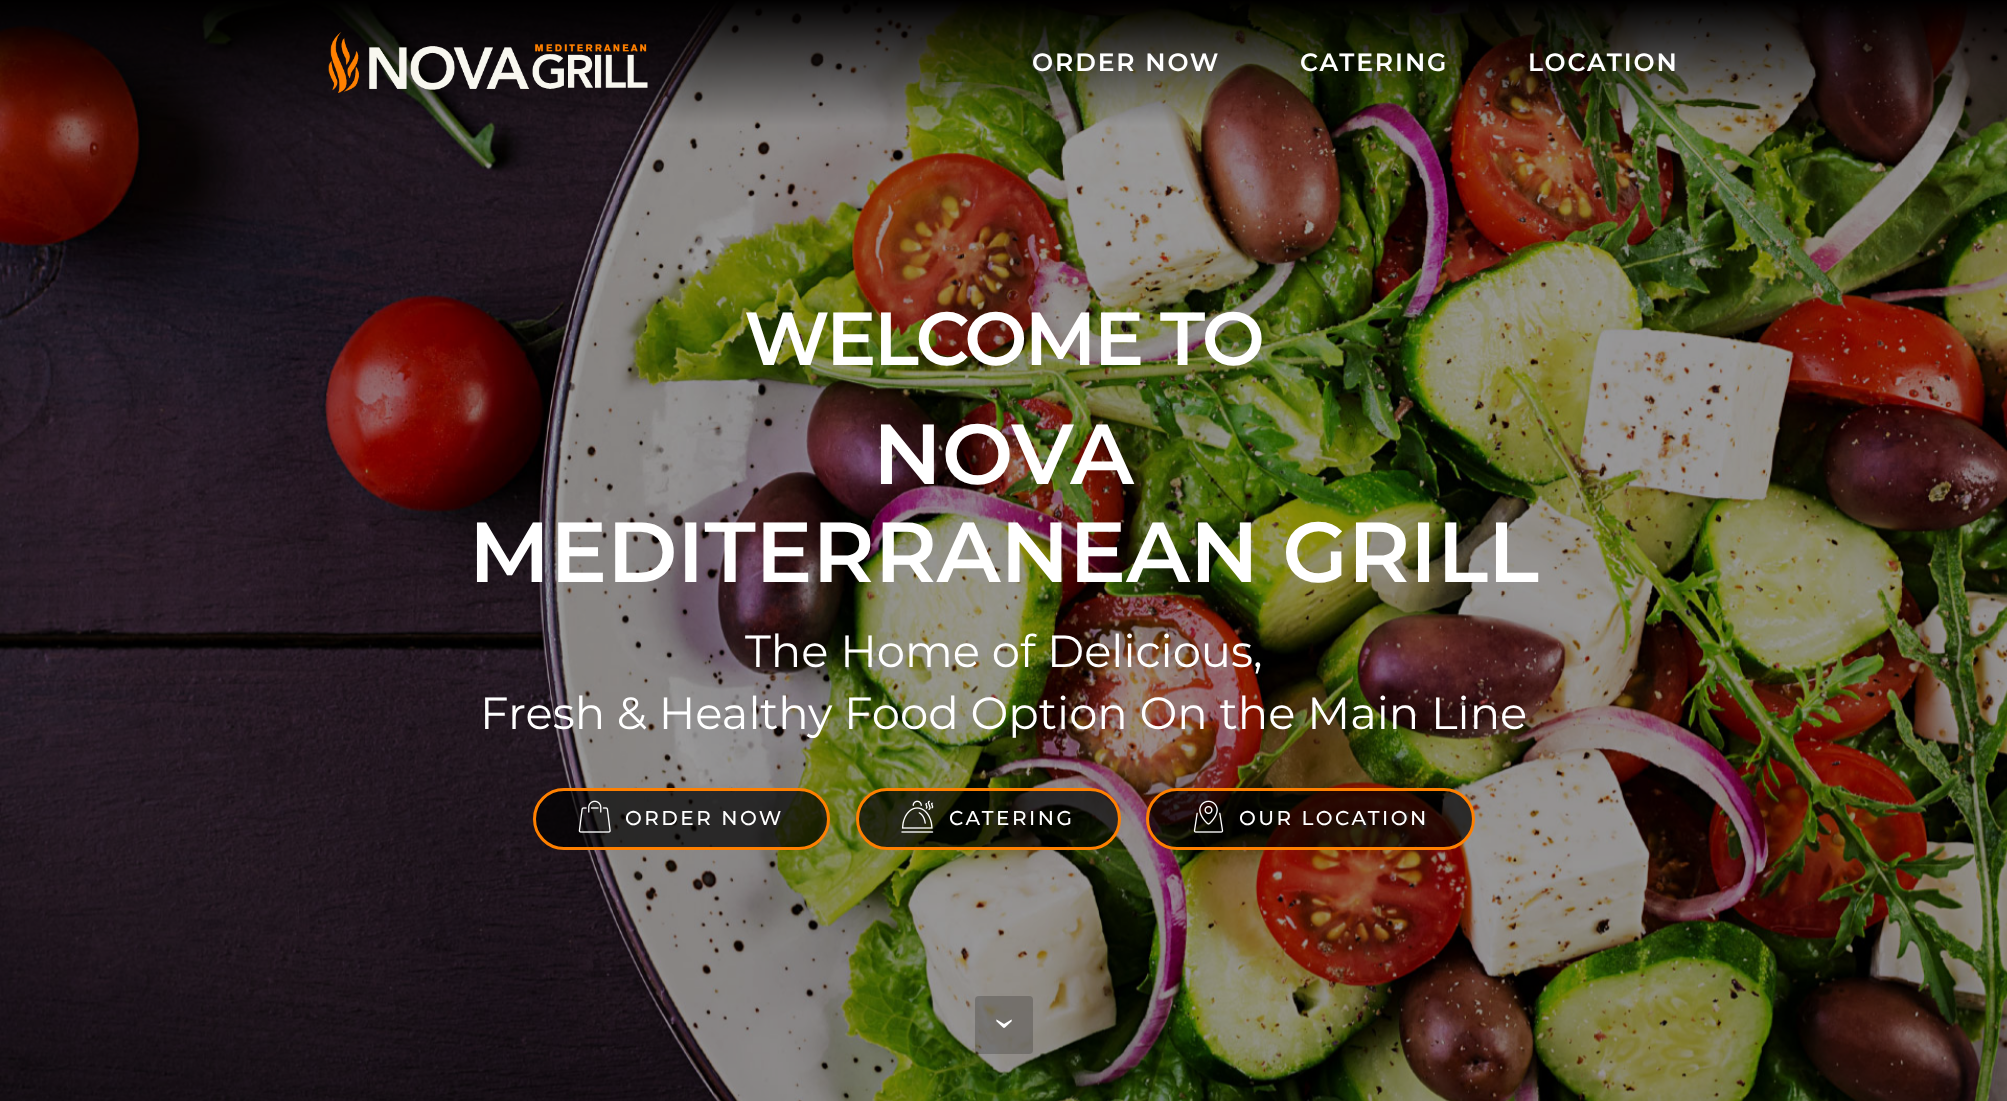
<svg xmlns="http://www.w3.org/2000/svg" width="2007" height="1101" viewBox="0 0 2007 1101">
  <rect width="100%" height="100%" fill="#ffffff"/>
  <image x="0" y="0" width="2007" height="1101" href="img2.png"/>
  <image x="328" y="32" width="320" height="61" href="img1.png"/>
  <text x="1032" y="71" font-family="Montserrat" font-size="25" font-weight="600" letter-spacing="1.9" fill="#ffffff">ORDER NOW</text>
  <text x="1300" y="71" font-family="Montserrat" font-size="25" font-weight="600" letter-spacing="1.9" fill="#ffffff">CATERING</text>
  <text x="1528" y="71" font-family="Montserrat" font-size="25" font-weight="600" letter-spacing="1.9" fill="#ffffff">LOCATION</text>
  <text x="744" y="365" font-family="Montserrat" font-size="75" font-weight="600" letter-spacing="-2.5" fill="#ffffff">WELCOME TO</text>
  <text x="873" y="484" font-family="Montserrat" font-size="85" font-weight="600" fill="#ffffff">NOVA</text>
  <text x="469" y="582" font-family="Montserrat" font-size="85" font-weight="600" fill="#ffffff">MEDITERRANEAN GRILL</text>
  <text x="745" y="667" font-family="Montserrat" font-size="45" fill="#ffffff">The Home of Delicious,</text>
  <text x="480" y="729" font-family="Montserrat" font-size="45" fill="#ffffff">Fresh &amp; Healthy Food Option On the Main Line</text>
  <rect x="534.5" y="789.5" width="294" height="59" rx="29.5" fill="#000000" fill-opacity="0.7" stroke="#ff8000" stroke-width="3"/>
  <image x="578" y="800" width="33" height="33" href="img3.png"/>
  <text x="625" y="825" font-family="Montserrat" font-size="20" font-weight="500" letter-spacing="2.5" fill="#ffffff">ORDER NOW</text>
  <rect x="857.5" y="789.5" width="262" height="59" rx="29.5" fill="#000000" fill-opacity="0.7" stroke="#ff8000" stroke-width="3"/>
  <image x="901" y="800" width="33" height="33" href="img4.png"/>
  <text x="949" y="825" font-family="Montserrat" font-size="20" font-weight="500" letter-spacing="2.5" fill="#ffffff">CATERING</text>
  <rect x="1147.5" y="789.5" width="326" height="59" rx="29.5" fill="#000000" fill-opacity="0.7" stroke="#ff8000" stroke-width="3"/>
  <image x="1193" y="800" width="31" height="33" href="img5.png"/>
  <text x="1239" y="825" font-family="Montserrat" font-size="20" font-weight="500" letter-spacing="2.5" fill="#ffffff">OUR LOCATION</text>
  <rect x="975" y="996" width="58" height="58" rx="4" fill="#000000" fill-opacity="0.2"/>
  <text x="995" y="1017" transform="rotate(90 995 1017)" font-family="Liberation Serif" font-size="40" fill="#ffffff">›</text>
</svg>
